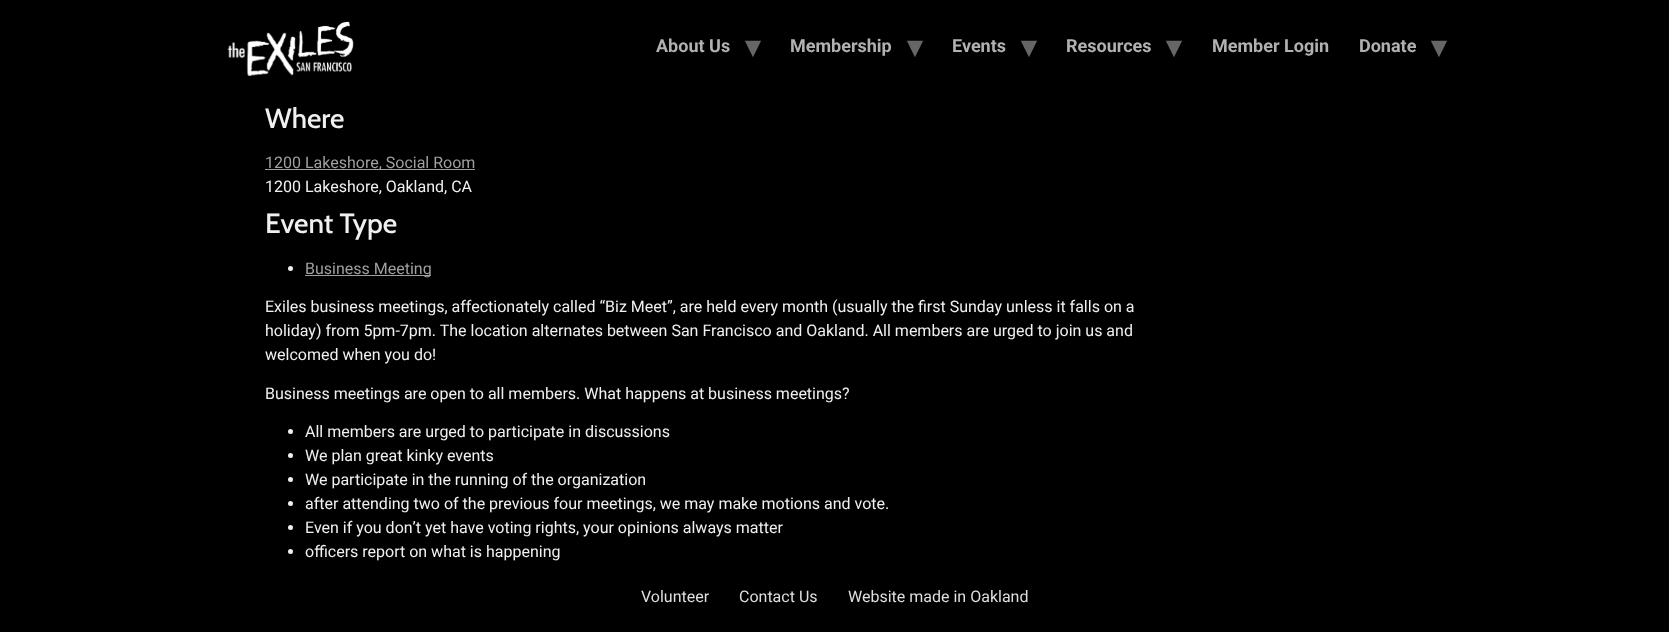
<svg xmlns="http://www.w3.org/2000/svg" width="1669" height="632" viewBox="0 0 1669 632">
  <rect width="100%" height="100%" fill="#000000"/>
  <image x="227" y="21" width="127" height="56" href="img1.png"/>
  <text x="656" y="52" font-family="Roboto" font-size="18" font-weight="bold" fill="#b2b1b1">About Us</text>
  <text x="745" y="57" font-family="DejaVu Sans" font-size="30" font-weight="bold" fill="#666666">▾</text>
  <text x="790" y="52" font-family="Roboto" font-size="18" font-weight="bold" fill="#b2b1b1">Membership</text>
  <text x="907" y="57" font-family="DejaVu Sans" font-size="30" font-weight="bold" fill="#666666">▾</text>
  <text x="952" y="52" font-family="Roboto" font-size="18" font-weight="bold" fill="#b2b1b1">Events</text>
  <text x="1021" y="57" font-family="DejaVu Sans" font-size="30" font-weight="bold" fill="#666666">▾</text>
  <text x="1066" y="52" font-family="Roboto" font-size="18" font-weight="bold" fill="#b2b1b1">Resources</text>
  <text x="1166" y="57" font-family="DejaVu Sans" font-size="30" font-weight="bold" fill="#666666">▾</text>
  <text x="1212" y="52" font-family="Roboto" font-size="18" font-weight="bold" fill="#b2b1b1">Member Login</text>
  <text x="1359" y="52" font-family="Roboto" font-size="18" font-weight="bold" fill="#b2b1b1">Donate</text>
  <text x="1431" y="57" font-family="DejaVu Sans" font-size="30" font-weight="bold" fill="#666666">▾</text>
  <text x="265" y="128" font-family="Cabin" font-size="28" font-weight="500" fill="#f0f0f0">Where</text>
  <rect x="265" y="169" width="210" height="1" fill="#a29f9f"/>
  <text x="265" y="168" font-family="Roboto" font-size="16" fill="#a29f9f">1200 Lakeshore, Social Room</text>
  <text x="265" y="192" font-family="Roboto" font-size="16" fill="#f0f0f0">1200 Lakeshore, Oakland, CA</text>
  <text x="265" y="233" font-family="Cabin" font-size="28" font-weight="500" fill="#f0f0f0">Event Type</text>
  <circle cx="290.5" cy="268.5" r="2.5" fill="#f0f0f0"/>
  <rect x="305" y="275" width="126" height="1" fill="#a29f9f"/>
  <text x="305" y="274" font-family="Roboto" font-size="16" fill="#a29f9f">Business Meeting</text>
  <text x="265" y="312" font-family="Roboto" font-size="16" fill="#f0f0f0">Exiles business meetings, affectionately called “Biz Meet”, are held every month (usually the first Sunday unless it falls on a</text>
  <text x="265" y="336" font-family="Roboto" font-size="16" fill="#f0f0f0">holiday) from 5pm-7pm. The location alternates between San Francisco and Oakland. All members are urged to join us and</text>
  <text x="265" y="360" font-family="Roboto" font-size="16" fill="#f0f0f0">welcomed when you do!</text>
  <text x="265" y="399" font-family="Roboto" font-size="16" fill="#f0f0f0">Business meetings are open to all members. What happens at business meetings?</text>
  <circle cx="290.5" cy="431.5" r="2.5" fill="#f0f0f0"/>
  <text x="305" y="437" font-family="Roboto" font-size="16" fill="#f0f0f0">All members are urged to participate in discussions</text>
  <circle cx="290.5" cy="455.5" r="2.5" fill="#f0f0f0"/>
  <text x="305" y="461" font-family="Roboto" font-size="16" fill="#f0f0f0">We plan great kinky events</text>
  <circle cx="290.5" cy="479.5" r="2.5" fill="#f0f0f0"/>
  <text x="305" y="485" font-family="Roboto" font-size="16" fill="#f0f0f0">We participate in the running of the organization</text>
  <circle cx="290.5" cy="503.5" r="2.5" fill="#f0f0f0"/>
  <text x="305" y="509" font-family="Roboto" font-size="16" fill="#f0f0f0">after attending two of the previous four meetings, we may make motions and vote.</text>
  <circle cx="290.5" cy="527.5" r="2.5" fill="#f0f0f0"/>
  <text x="305" y="533" font-family="Roboto" font-size="16" fill="#f0f0f0">Even if you don’t yet have voting rights, your opinions always matter</text>
  <circle cx="290.5" cy="551.5" r="2.5" fill="#f0f0f0"/>
  <text x="305" y="557" font-family="Roboto" font-size="16" fill="#f0f0f0">officers report on what is happening</text>
  <text x="641" y="602" font-family="Roboto" font-size="16" fill="#dfdfdf">Volunteer</text>
  <text x="739" y="602" font-family="Roboto" font-size="16" fill="#dfdfdf">Contact Us</text>
  <text x="848" y="602" font-family="Roboto" font-size="16" fill="#dfdfdf">Website made in Oakland</text>
</svg>
